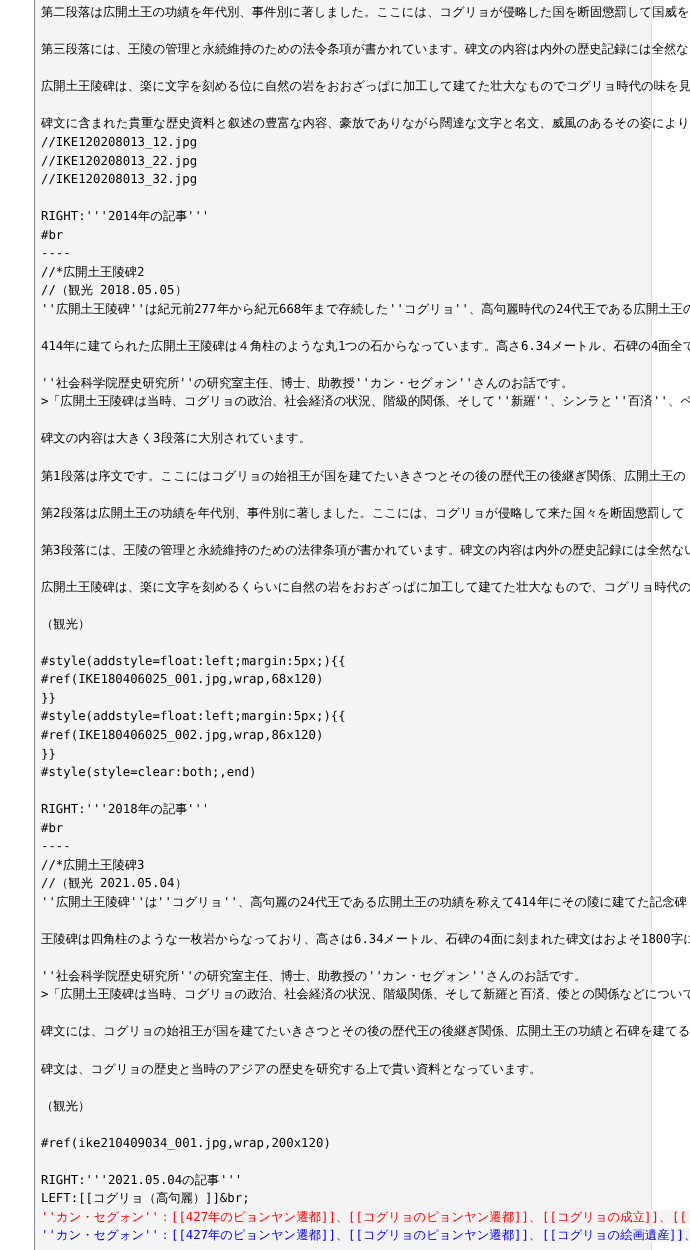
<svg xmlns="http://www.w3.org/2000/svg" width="690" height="1250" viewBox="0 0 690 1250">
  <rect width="100%" height="100%" fill="#ffffff"/>
  <rect x="35" y="0" width="616" height="1250" fill="#f4f4f4"/>
  <rect x="651" y="0" width="1" height="1250" fill="#ddddee"/>
  <rect x="34" y="0" width="1" height="1250" fill="#888899"/>
  <text x="41" y="16" font-family="WenQuanYi Zen Hei" font-size="12.35" font-weight="500" fill="#000000">第二段落は広開土王の功績を年代別、事件別に著しました。ここには、コグリョが侵略した国を断固懲罰して国威を</text>
  <text x="41" y="53" font-family="WenQuanYi Zen Hei" font-size="12.35" font-weight="500" fill="#000000">第三段落には、王陵の管理と永続維持のための法令条項が書かれています。碑文の内容は内外の歴史記録には全然な</text>
  <text x="41" y="90" font-family="WenQuanYi Zen Hei" font-size="12.35" font-weight="500" fill="#000000">広開土王陵碑は、楽に文字を刻める位に自然の岩をおおざっぱに加工して建てた壮大なものでコグリョ時代の味を見</text>
  <text x="41" y="127" font-family="WenQuanYi Zen Hei" font-size="12.35" font-weight="500" fill="#000000">碑文に含まれた貴重な歴史資料と叙述の豊富な内容、豪放でありながら闊達な文字と名文、威風のあるその姿により</text>
  <text x="41" y="146" font-family="DejaVu Sans Mono" font-size="12.35" fill="#000000">//IKE120208013_12.jpg</text>
  <text x="41" y="165" font-family="DejaVu Sans Mono" font-size="12.35" fill="#000000">//IKE120208013_22.jpg</text>
  <text x="41" y="183" font-family="DejaVu Sans Mono" font-size="12.35" fill="#000000">//IKE120208013_32.jpg</text>
  <text x="41" y="220" font-family="DejaVu Sans Mono" font-size="12.35" fill="#000000">RIGHT:'''2014</text>
  <text x="138" y="220" font-family="WenQuanYi Zen Hei" font-size="12.35" font-weight="500" fill="#000000">年の記事</text>
  <text x="187" y="220" font-family="DejaVu Sans Mono" font-size="12.35" fill="#000000">'''</text>
  <text x="41" y="239" font-family="DejaVu Sans Mono" font-size="12.35" fill="#000000">#br</text>
  <text x="41" y="257" font-family="DejaVu Sans Mono" font-size="12.35" fill="#000000">----</text>
  <text x="41" y="276" font-family="DejaVu Sans Mono" font-size="12.35" fill="#000000">//*</text>
  <text x="63" y="276" font-family="WenQuanYi Zen Hei" font-size="12.35" font-weight="500" fill="#000000">広開土王陵碑</text>
  <text x="137" y="276" font-family="DejaVu Sans Mono" font-size="12.35" fill="#000000">2</text>
  <text x="41" y="294" font-family="DejaVu Sans Mono" font-size="12.35" fill="#000000">//</text>
  <text x="56" y="294" font-family="WenQuanYi Zen Hei" font-size="12.35" font-weight="500" fill="#000000">（観光</text>
  <text x="100" y="294" font-family="DejaVu Sans Mono" font-size="12.35" fill="#000000">2018.05.05</text>
  <text x="175" y="294" font-family="WenQuanYi Zen Hei" font-size="12.35" font-weight="500" fill="#000000">）</text>
  <text x="41" y="313" font-family="DejaVu Sans Mono" font-size="12.35" fill="#000000">''</text>
  <text x="56" y="313" font-family="WenQuanYi Zen Hei" font-size="12.35" font-weight="500" fill="#000000">広開土王陵碑</text>
  <text x="130" y="313" font-family="DejaVu Sans Mono" font-size="12.35" fill="#000000">''</text>
  <text x="145" y="313" font-family="WenQuanYi Zen Hei" font-size="12.35" font-weight="500" fill="#000000">は紀元前</text>
  <text x="194" y="313" font-family="DejaVu Sans Mono" font-size="12.35" fill="#000000">277</text>
  <text x="217" y="313" font-family="WenQuanYi Zen Hei" font-size="12.35" font-weight="500" fill="#000000">年から紀元</text>
  <text x="279" y="313" font-family="DejaVu Sans Mono" font-size="12.35" fill="#000000">668</text>
  <text x="301" y="313" font-family="WenQuanYi Zen Hei" font-size="12.35" font-weight="500" fill="#000000">年まで存続した</text>
  <text x="389" y="313" font-family="DejaVu Sans Mono" font-size="12.35" fill="#000000">''</text>
  <text x="404" y="313" font-family="WenQuanYi Zen Hei" font-size="12.35" font-weight="500" fill="#000000">コグリョ</text>
  <text x="454" y="313" font-family="DejaVu Sans Mono" font-size="12.35" fill="#000000">''</text>
  <text x="469" y="313" font-family="WenQuanYi Zen Hei" font-size="12.35" font-weight="500" fill="#000000">、高句麗時代の</text>
  <text x="556" y="313" font-family="DejaVu Sans Mono" font-size="12.35" fill="#000000">24</text>
  <text x="571" y="313" font-family="WenQuanYi Zen Hei" font-size="12.35" font-weight="500" fill="#000000">代王である広開土王の</text>
  <text x="41" y="350" font-family="DejaVu Sans Mono" font-size="12.35" fill="#000000">414</text>
  <text x="63" y="350" font-family="WenQuanYi Zen Hei" font-size="12.35" font-weight="500" fill="#000000">年に建てられた広開土王陵碑は４角柱のような丸</text>
  <text x="338" y="350" font-family="DejaVu Sans Mono" font-size="12.35" fill="#000000">1</text>
  <text x="345" y="350" font-family="WenQuanYi Zen Hei" font-size="12.35" font-weight="500" fill="#000000">つの石からなっています。高さ</text>
  <text x="521" y="350" font-family="DejaVu Sans Mono" font-size="12.35" fill="#000000">6.34</text>
  <text x="551" y="350" font-family="WenQuanYi Zen Hei" font-size="12.35" font-weight="500" fill="#000000">メートル、石碑の</text>
  <text x="651" y="350" font-family="DejaVu Sans Mono" font-size="12.35" fill="#000000">4</text>
  <text x="658" y="350" font-family="WenQuanYi Zen Hei" font-size="12.35" font-weight="500" fill="#000000">面全て</text>
  <text x="41" y="387" font-family="DejaVu Sans Mono" font-size="12.35" fill="#000000">''</text>
  <text x="56" y="387" font-family="WenQuanYi Zen Hei" font-size="12.35" font-weight="500" fill="#000000">社会科学院歴史研究所</text>
  <text x="179" y="387" font-family="DejaVu Sans Mono" font-size="12.35" fill="#000000">''</text>
  <text x="194" y="387" font-family="WenQuanYi Zen Hei" font-size="12.35" font-weight="500" fill="#000000">の研究室主任、博士、助教授</text>
  <text x="355" y="387" font-family="DejaVu Sans Mono" font-size="12.35" fill="#000000">''</text>
  <text x="370" y="387" font-family="WenQuanYi Zen Hei" font-size="12.35" font-weight="500" fill="#000000">カン・セグォン</text>
  <text x="458" y="387" font-family="DejaVu Sans Mono" font-size="12.35" fill="#000000">''</text>
  <text x="473" y="387" font-family="WenQuanYi Zen Hei" font-size="12.35" font-weight="500" fill="#000000">さんのお話です。</text>
  <text x="41" y="405" font-family="DejaVu Sans Mono" font-size="12.35" fill="#000000">&gt;</text>
  <text x="48" y="405" font-family="WenQuanYi Zen Hei" font-size="12.35" font-weight="500" fill="#000000">「広開土王陵碑は当時、コグリョの政治、社会経済の状況、階級的関係、そして</text>
  <text x="496" y="405" font-family="DejaVu Sans Mono" font-size="12.35" fill="#000000">''</text>
  <text x="511" y="405" font-family="WenQuanYi Zen Hei" font-size="12.35" font-weight="500" fill="#000000">新羅</text>
  <text x="535" y="405" font-family="DejaVu Sans Mono" font-size="12.35" fill="#000000">''</text>
  <text x="550" y="405" font-family="WenQuanYi Zen Hei" font-size="12.35" font-weight="500" fill="#000000">、シンラと</text>
  <text x="613" y="405" font-family="DejaVu Sans Mono" font-size="12.35" fill="#000000">''</text>
  <text x="628" y="405" font-family="WenQuanYi Zen Hei" font-size="12.35" font-weight="500" fill="#000000">百済</text>
  <text x="653" y="405" font-family="DejaVu Sans Mono" font-size="12.35" fill="#000000">''</text>
  <text x="668" y="405" font-family="WenQuanYi Zen Hei" font-size="12.35" font-weight="500" fill="#000000">、ペ</text>
  <text x="41" y="442" font-family="WenQuanYi Zen Hei" font-size="12.35" font-weight="500" fill="#000000">碑文の内容は大きく</text>
  <text x="153" y="442" font-family="DejaVu Sans Mono" font-size="12.35" fill="#000000">3</text>
  <text x="161" y="442" font-family="WenQuanYi Zen Hei" font-size="12.35" font-weight="500" fill="#000000">段落に大別されています。</text>
  <text x="41" y="480" font-family="WenQuanYi Zen Hei" font-size="12.35" font-weight="500" fill="#000000">第</text>
  <text x="53" y="480" font-family="DejaVu Sans Mono" font-size="12.35" fill="#000000">1</text>
  <text x="61" y="480" font-family="WenQuanYi Zen Hei" font-size="12.35" font-weight="500" fill="#000000">段落は序文です。ここにはコグリョの始祖王が国を建てたいきさつとその後の歴代王の後継ぎ関係、広開土王の</text>
  <text x="41" y="517" font-family="WenQuanYi Zen Hei" font-size="12.35" font-weight="500" fill="#000000">第</text>
  <text x="53" y="517" font-family="DejaVu Sans Mono" font-size="12.35" fill="#000000">2</text>
  <text x="61" y="517" font-family="WenQuanYi Zen Hei" font-size="12.35" font-weight="500" fill="#000000">段落は広開土王の功績を年代別、事件別に著しました。ここには、コグリョが侵略して来た国々を断固懲罰して</text>
  <text x="41" y="554" font-family="WenQuanYi Zen Hei" font-size="12.35" font-weight="500" fill="#000000">第</text>
  <text x="53" y="554" font-family="DejaVu Sans Mono" font-size="12.35" fill="#000000">3</text>
  <text x="61" y="554" font-family="WenQuanYi Zen Hei" font-size="12.35" font-weight="500" fill="#000000">段落には、王陵の管理と永続維持のための法律条項が書かれています。碑文の内容は内外の歴史記録には全然ない</text>
  <text x="41" y="591" font-family="WenQuanYi Zen Hei" font-size="12.35" font-weight="500" fill="#000000">広開土王陵碑は、楽に文字を刻めるくらいに自然の岩をおおざっぱに加工して建てた壮大なもので、コグリョ時代の</text>
  <text x="41" y="628" font-family="WenQuanYi Zen Hei" font-size="12.35" font-weight="500" fill="#000000">（観光）</text>
  <text x="41" y="665" font-family="DejaVu Sans Mono" font-size="12.35" fill="#000000">#style(addstyle=float:left;margin:5px;){{</text>
  <text x="41" y="683" font-family="DejaVu Sans Mono" font-size="12.35" fill="#000000">#ref(IKE180406025_001.jpg,wrap,68x120)</text>
  <text x="41" y="702" font-family="DejaVu Sans Mono" font-size="12.35" fill="#000000">}}</text>
  <text x="41" y="720" font-family="DejaVu Sans Mono" font-size="12.35" fill="#000000">#style(addstyle=float:left;margin:5px;){{</text>
  <text x="41" y="739" font-family="DejaVu Sans Mono" font-size="12.35" fill="#000000">#ref(IKE180406025_002.jpg,wrap,86x120)</text>
  <text x="41" y="758" font-family="DejaVu Sans Mono" font-size="12.35" fill="#000000">}}</text>
  <text x="41" y="776" font-family="DejaVu Sans Mono" font-size="12.35" fill="#000000">#style(style=clear:both;,end)</text>
  <text x="41" y="813" font-family="DejaVu Sans Mono" font-size="12.35" fill="#000000">RIGHT:'''2018</text>
  <text x="138" y="813" font-family="WenQuanYi Zen Hei" font-size="12.35" font-weight="500" fill="#000000">年の記事</text>
  <text x="187" y="813" font-family="DejaVu Sans Mono" font-size="12.35" fill="#000000">'''</text>
  <text x="41" y="832" font-family="DejaVu Sans Mono" font-size="12.35" fill="#000000">#br</text>
  <text x="41" y="850" font-family="DejaVu Sans Mono" font-size="12.35" fill="#000000">----</text>
  <text x="41" y="869" font-family="DejaVu Sans Mono" font-size="12.35" fill="#000000">//*</text>
  <text x="63" y="869" font-family="WenQuanYi Zen Hei" font-size="12.35" font-weight="500" fill="#000000">広開土王陵碑</text>
  <text x="137" y="869" font-family="DejaVu Sans Mono" font-size="12.35" fill="#000000">3</text>
  <text x="41" y="887" font-family="DejaVu Sans Mono" font-size="12.35" fill="#000000">//</text>
  <text x="56" y="887" font-family="WenQuanYi Zen Hei" font-size="12.35" font-weight="500" fill="#000000">（観光</text>
  <text x="100" y="887" font-family="DejaVu Sans Mono" font-size="12.35" fill="#000000">2021.05.04</text>
  <text x="175" y="887" font-family="WenQuanYi Zen Hei" font-size="12.35" font-weight="500" fill="#000000">）</text>
  <text x="41" y="906" font-family="DejaVu Sans Mono" font-size="12.35" fill="#000000">''</text>
  <text x="56" y="906" font-family="WenQuanYi Zen Hei" font-size="12.35" font-weight="500" fill="#000000">広開土王陵碑</text>
  <text x="130" y="906" font-family="DejaVu Sans Mono" font-size="12.35" fill="#000000">''</text>
  <text x="145" y="906" font-family="WenQuanYi Zen Hei" font-size="12.35" font-weight="500" fill="#000000">は</text>
  <text x="157" y="906" font-family="DejaVu Sans Mono" font-size="12.35" fill="#000000">''</text>
  <text x="172" y="906" font-family="WenQuanYi Zen Hei" font-size="12.35" font-weight="500" fill="#000000">コグリョ</text>
  <text x="223" y="906" font-family="DejaVu Sans Mono" font-size="12.35" fill="#000000">''</text>
  <text x="238" y="906" font-family="WenQuanYi Zen Hei" font-size="12.35" font-weight="500" fill="#000000">、高句麗の</text>
  <text x="300" y="906" font-family="DejaVu Sans Mono" font-size="12.35" fill="#000000">24</text>
  <text x="315" y="906" font-family="WenQuanYi Zen Hei" font-size="12.35" font-weight="500" fill="#000000">代王である広開土王の功績を称えて</text>
  <text x="514" y="906" font-family="DejaVu Sans Mono" font-size="12.35" fill="#000000">414</text>
  <text x="537" y="906" font-family="WenQuanYi Zen Hei" font-size="12.35" font-weight="500" fill="#000000">年にその陵に建てた記念碑</text>
  <text x="41" y="943" font-family="WenQuanYi Zen Hei" font-size="12.35" font-weight="500" fill="#000000">王陵碑は四角柱のような一枚岩からなっており、高さは</text>
  <text x="354" y="943" font-family="DejaVu Sans Mono" font-size="12.35" fill="#000000">6.34</text>
  <text x="383" y="943" font-family="WenQuanYi Zen Hei" font-size="12.35" font-weight="500" fill="#000000">メートル、石碑の</text>
  <text x="483" y="943" font-family="DejaVu Sans Mono" font-size="12.35" fill="#000000">4</text>
  <text x="491" y="943" font-family="WenQuanYi Zen Hei" font-size="12.35" font-weight="500" fill="#000000">面に刻まれた碑文はおよそ</text>
  <text x="641" y="943" font-family="DejaVu Sans Mono" font-size="12.35" fill="#000000">1800</text>
  <text x="671" y="943" font-family="WenQuanYi Zen Hei" font-size="12.35" font-weight="500" fill="#000000">字に</text>
  <text x="41" y="980" font-family="DejaVu Sans Mono" font-size="12.35" fill="#000000">''</text>
  <text x="56" y="980" font-family="WenQuanYi Zen Hei" font-size="12.35" font-weight="500" fill="#000000">社会科学院歴史研究所</text>
  <text x="179" y="980" font-family="DejaVu Sans Mono" font-size="12.35" fill="#000000">''</text>
  <text x="194" y="980" font-family="WenQuanYi Zen Hei" font-size="12.35" font-weight="500" fill="#000000">の研究室主任、博士、助教授の</text>
  <text x="368" y="980" font-family="DejaVu Sans Mono" font-size="12.35" fill="#000000">''</text>
  <text x="382" y="980" font-family="WenQuanYi Zen Hei" font-size="12.35" font-weight="500" fill="#000000">カン・セグォン</text>
  <text x="471" y="980" font-family="DejaVu Sans Mono" font-size="12.35" fill="#000000">''</text>
  <text x="486" y="980" font-family="WenQuanYi Zen Hei" font-size="12.35" font-weight="500" fill="#000000">さんのお話です。</text>
  <text x="41" y="998" font-family="DejaVu Sans Mono" font-size="12.35" fill="#000000">&gt;</text>
  <text x="48" y="998" font-family="WenQuanYi Zen Hei" font-size="12.35" font-weight="500" fill="#000000">「広開土王陵碑は当時、コグリョの政治、社会経済の状況、階級関係、そして新羅と百済、倭との関係などについて</text>
  <text x="41" y="1035" font-family="WenQuanYi Zen Hei" font-size="12.35" font-weight="500" fill="#000000">碑文には、コグリョの始祖王が国を建てたいきさつとその後の歴代王の後継ぎ関係、広開土王の功績と石碑を建てる</text>
  <text x="41" y="1073" font-family="WenQuanYi Zen Hei" font-size="12.35" font-weight="500" fill="#000000">碑文は、コグリョの歴史と当時のアジアの歴史を研究する上で貴い資料となっています。</text>
  <text x="41" y="1110" font-family="WenQuanYi Zen Hei" font-size="12.35" font-weight="500" fill="#000000">（観光）</text>
  <text x="41" y="1147" font-family="DejaVu Sans Mono" font-size="12.35" fill="#000000">#ref(ike210409034_001.jpg,wrap,200x120)</text>
  <text x="41" y="1184" font-family="DejaVu Sans Mono" font-size="12.35" fill="#000000">RIGHT:'''2021.05.04</text>
  <text x="182" y="1184" font-family="WenQuanYi Zen Hei" font-size="12.35" font-weight="500" fill="#000000">の記事</text>
  <text x="220" y="1184" font-family="DejaVu Sans Mono" font-size="12.35" fill="#000000">'''</text>
  <text x="41" y="1202" font-family="DejaVu Sans Mono" font-size="12.35" fill="#000000">LEFT:[[</text>
  <text x="93" y="1202" font-family="WenQuanYi Zen Hei" font-size="12.35" font-weight="500" fill="#000000">コグリョ（高句麗）</text>
  <text x="205" y="1202" font-family="DejaVu Sans Mono" font-size="12.35" fill="#000000">]]&amp;br;</text>
  <text x="41" y="1221" font-family="DejaVu Sans Mono" font-size="12.35" fill="#ff0000">''</text>
  <text x="56" y="1221" font-family="WenQuanYi Zen Hei" font-size="12.35" font-weight="500" fill="#ff0000">カン・セグォン</text>
  <text x="144" y="1221" font-family="DejaVu Sans Mono" font-size="12.35" fill="#ff0000">''</text>
  <text x="159" y="1221" font-family="WenQuanYi Zen Hei" font-size="12.35" font-weight="500" fill="#ff0000">：</text>
  <text x="171" y="1221" font-family="DejaVu Sans Mono" font-size="12.35" fill="#ff0000">[[427</text>
  <text x="208" y="1221" font-family="WenQuanYi Zen Hei" font-size="12.35" font-weight="500" fill="#ff0000">年のピョンヤン遷都</text>
  <text x="321" y="1221" font-family="DejaVu Sans Mono" font-size="12.35" fill="#ff0000">]]</text>
  <text x="348" y="1221" font-family="DejaVu Sans Mono" font-size="12.35" fill="#ff0000">[[</text>
  <text x="363" y="1221" font-family="WenQuanYi Zen Hei" font-size="12.35" font-weight="500" fill="#ff0000">コグリョのピョンヤン遷都</text>
  <text x="514" y="1221" font-family="DejaVu Sans Mono" font-size="12.35" fill="#ff0000">]]</text>
  <text x="542" y="1221" font-family="DejaVu Sans Mono" font-size="12.35" fill="#ff0000">[[</text>
  <text x="557" y="1221" font-family="WenQuanYi Zen Hei" font-size="12.35" font-weight="500" fill="#ff0000">コグリョの成立</text>
  <rect x="651" y="1210" width="39" height="14" fill="#f4f4f4"/>
  <text x="644" y="1221" font-family="DejaVu Sans Mono" font-size="12.35" fill="#ff0000">]]</text>
  <text x="672" y="1221" font-family="DejaVu Sans Mono" font-size="12.35" fill="#ff0000">[[</text>
  <text x="336" y="1221" font-family="WenQuanYi Zen Hei" font-size="12.35" font-weight="500" fill="#ff0000">、</text>
  <text x="529" y="1221" font-family="WenQuanYi Zen Hei" font-size="12.35" font-weight="500" fill="#ff0000">、</text>
  <text x="659" y="1221" font-family="WenQuanYi Zen Hei" font-size="12.35" font-weight="500" fill="#ff0000">、</text>
  <text x="41" y="1239" font-family="DejaVu Sans Mono" font-size="12.35" fill="#0000ff">''</text>
  <text x="56" y="1239" font-family="WenQuanYi Zen Hei" font-size="12.35" font-weight="500" fill="#0000ff">カン・セグォン</text>
  <text x="144" y="1239" font-family="DejaVu Sans Mono" font-size="12.35" fill="#0000ff">''</text>
  <text x="159" y="1239" font-family="WenQuanYi Zen Hei" font-size="12.35" font-weight="500" fill="#0000ff">：</text>
  <text x="171" y="1239" font-family="DejaVu Sans Mono" font-size="12.35" fill="#0000ff">[[427</text>
  <text x="208" y="1239" font-family="WenQuanYi Zen Hei" font-size="12.35" font-weight="500" fill="#0000ff">年のピョンヤン遷都</text>
  <text x="321" y="1239" font-family="DejaVu Sans Mono" font-size="12.35" fill="#0000ff">]]</text>
  <text x="348" y="1239" font-family="DejaVu Sans Mono" font-size="12.35" fill="#0000ff">[[</text>
  <text x="363" y="1239" font-family="WenQuanYi Zen Hei" font-size="12.35" font-weight="500" fill="#0000ff">コグリョのピョンヤン遷都</text>
  <text x="514" y="1239" font-family="DejaVu Sans Mono" font-size="12.35" fill="#0000ff">]]</text>
  <text x="542" y="1239" font-family="DejaVu Sans Mono" font-size="12.35" fill="#0000ff">[[</text>
  <rect x="651" y="1228" width="39" height="14" fill="#f4f4f4"/>
  <text x="557" y="1239" font-family="WenQuanYi Zen Hei" font-size="12.35" font-weight="500" fill="#0000ff">コグリョの絵画遺産</text>
  <text x="669" y="1239" font-family="DejaVu Sans Mono" font-size="12.35" fill="#0000ff">]]</text>
  <text x="336" y="1239" font-family="WenQuanYi Zen Hei" font-size="12.35" font-weight="500" fill="#0000ff">、</text>
  <text x="529" y="1239" font-family="WenQuanYi Zen Hei" font-size="12.35" font-weight="500" fill="#0000ff">、</text>
  <text x="684" y="1239" font-family="WenQuanYi Zen Hei" font-size="12.35" font-weight="500" fill="#0000ff">、</text>
</svg>
